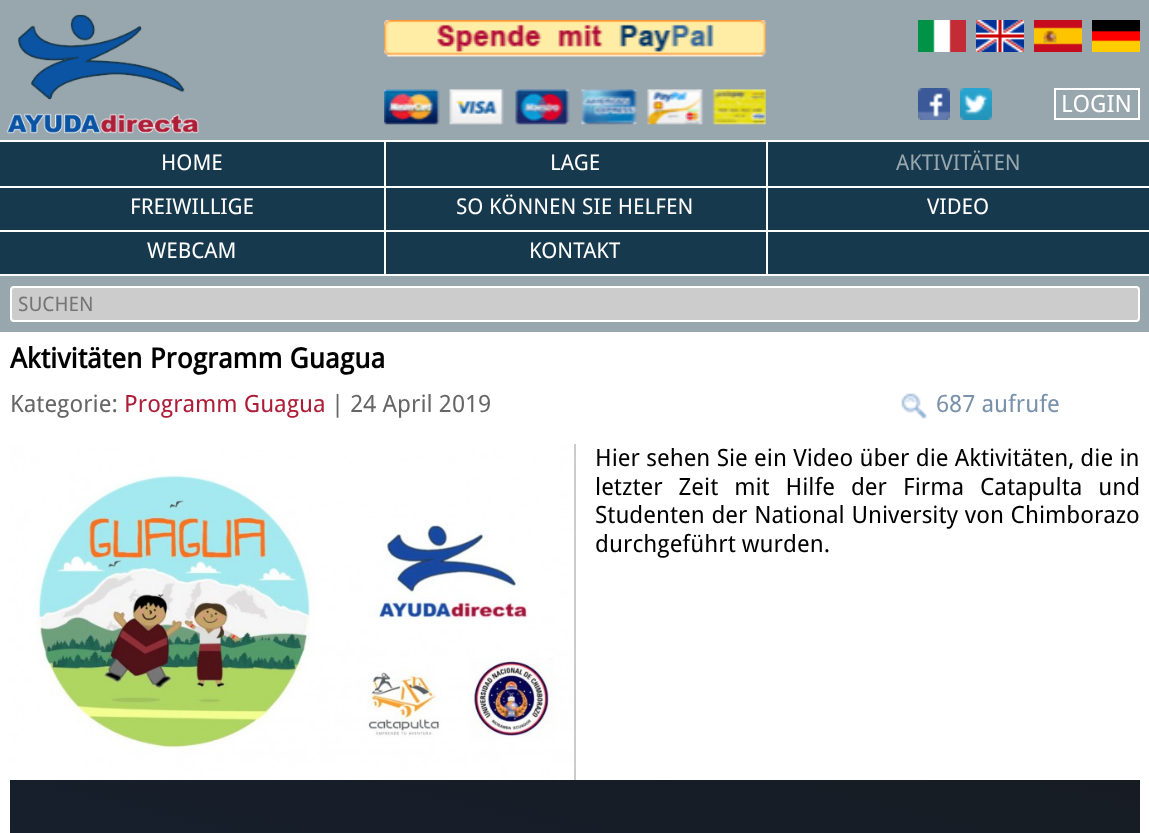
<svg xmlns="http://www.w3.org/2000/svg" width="1149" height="833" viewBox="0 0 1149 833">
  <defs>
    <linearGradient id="g1" gradientUnits="userSpaceOnUse" x1="467" y1="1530" x2="683" y2="666"><stop offset="0" stop-color="#15243c"/><stop offset="1" stop-color="#171c23"/></linearGradient>
  </defs>
  <rect width="100%" height="100%" fill="#98a6ae"/>
  <rect x="0" y="332" width="1149" height="501" fill="#ffffff"/>
  <image x="6" y="14" width="194" height="120" href="img1.png"/>
  <image x="384" y="20" width="382" height="105" href="img2.png"/>
  <image x="918" y="20" width="48" height="32" href="img3.png"/>
  <image x="976" y="20" width="48" height="32" href="img4.png"/>
  <image x="1034" y="20" width="48" height="32" href="img5.png"/>
  <image x="1092" y="20" width="48" height="32" href="img6.png"/>
  <image x="918" y="88" width="32" height="32" href="img7.png"/>
  <image x="960" y="88" width="32" height="32" href="img8.png"/>
  <rect x="1055" y="89" width="84" height="30" fill="none" stroke="#ffffff" stroke-width="2"/>
  <text x="1061" y="112" font-family="Droid Sans" font-size="23.75" fill="#ffffff">LOGIN</text>
  <rect x="11" y="287" width="1128" height="34" rx="3" fill="#cccccc" stroke="#ffffff" stroke-width="2"/>
  <text x="18" y="311" font-family="Droid Sans" font-size="20" fill="#757575">SUCHEN</text>
  <rect x="0" y="140" width="1149" height="2" fill="#ffffff"/>
  <rect x="0" y="142" width="1149" height="132" fill="#17394d"/>
  <rect x="0" y="274" width="1149" height="2" fill="#ffffff"/>
  <rect x="384" y="142" width="2" height="46" fill="#ffffff"/>
  <rect x="0" y="186" width="386" height="2" fill="#ffffff"/>
  <text x="161" y="170" font-family="Droid Sans" font-size="21.75" fill="#ffffff">HOME</text>
  <rect x="766" y="142" width="2" height="46" fill="#ffffff"/>
  <rect x="384" y="186" width="765" height="2" fill="#ffffff"/>
  <text x="550" y="170" font-family="Droid Sans" font-size="21.75" fill="#ffffff">LAGE</text>
  <text x="896" y="170" font-family="Droid Sans" font-size="21.75" fill="#98a6ae">AKTIVITÄTEN</text>
  <rect x="384" y="186" width="2" height="46" fill="#ffffff"/>
  <rect x="0" y="230" width="386" height="2" fill="#ffffff"/>
  <text x="130" y="214" font-family="Droid Sans" font-size="21.75" fill="#ffffff">FREIWILLIGE</text>
  <rect x="766" y="186" width="2" height="46" fill="#ffffff"/>
  <rect x="384" y="230" width="765" height="2" fill="#ffffff"/>
  <text x="456" y="214" font-family="Droid Sans" font-size="21.75" fill="#ffffff">SO KÖNNEN SIE HELFEN</text>
  <text x="927" y="214" font-family="Droid Sans" font-size="21.75" fill="#ffffff">VIDEO</text>
  <rect x="384" y="230" width="2" height="44" fill="#ffffff"/>
  <text x="147" y="258" font-family="Droid Sans" font-size="21.75" fill="#ffffff">WEBCAM</text>
  <rect x="766" y="230" width="2" height="44" fill="#ffffff"/>
  <text x="529" y="258" font-family="Droid Sans" font-size="21.75" fill="#ffffff">KONTAKT</text>
  <text x="10" y="368" font-family="Droid Sans" font-size="27.75" font-weight="bold" fill="#000000">Aktivitäten Programm Guagua</text>
  <text x="10" y="412" font-family="Droid Sans" font-size="23.75" fill="#666666">Kategorie:</text>
  <text x="124" y="412" font-family="Droid Sans" font-size="23.75" fill="#ad1d37">Programm Guagua</text>
  <text x="331" y="412" font-family="Droid Sans" font-size="23.75" fill="#666666">| 24 April 2019</text>
  <image x="901" y="393" width="26" height="26" href="img9.png"/>
  <text x="936" y="412" font-family="Droid Sans" font-size="23.75" fill="#7991ab">687 aufrufe</text>
  <rect x="574" y="444" width="2" height="336" fill="#cccccc"/>
  <image x="10" y="444" width="564" height="336" href="img10.png"/>
  <text x="595" y="466" word-spacing="0.1" font-family="Droid Sans" font-size="23.75" fill="#000000">Hier sehen Sie ein Video über die Aktivitäten, die in</text>
  <text x="595" y="495" word-spacing="9.75" font-family="Droid Sans" font-size="23.75" fill="#000000">letzter Zeit mit Hilfe der Firma Catapulta und</text>
  <text x="595" y="523" word-spacing="0.5" font-family="Droid Sans" font-size="23.75" fill="#000000">Studenten der National University von Chimborazo</text>
  <text x="595" y="552" font-family="Droid Sans" font-size="23.75" fill="#000000">durchgeführt wurden.</text>
  <rect x="10" y="780" width="1130" height="53" fill="url(#g1)"/>
</svg>
